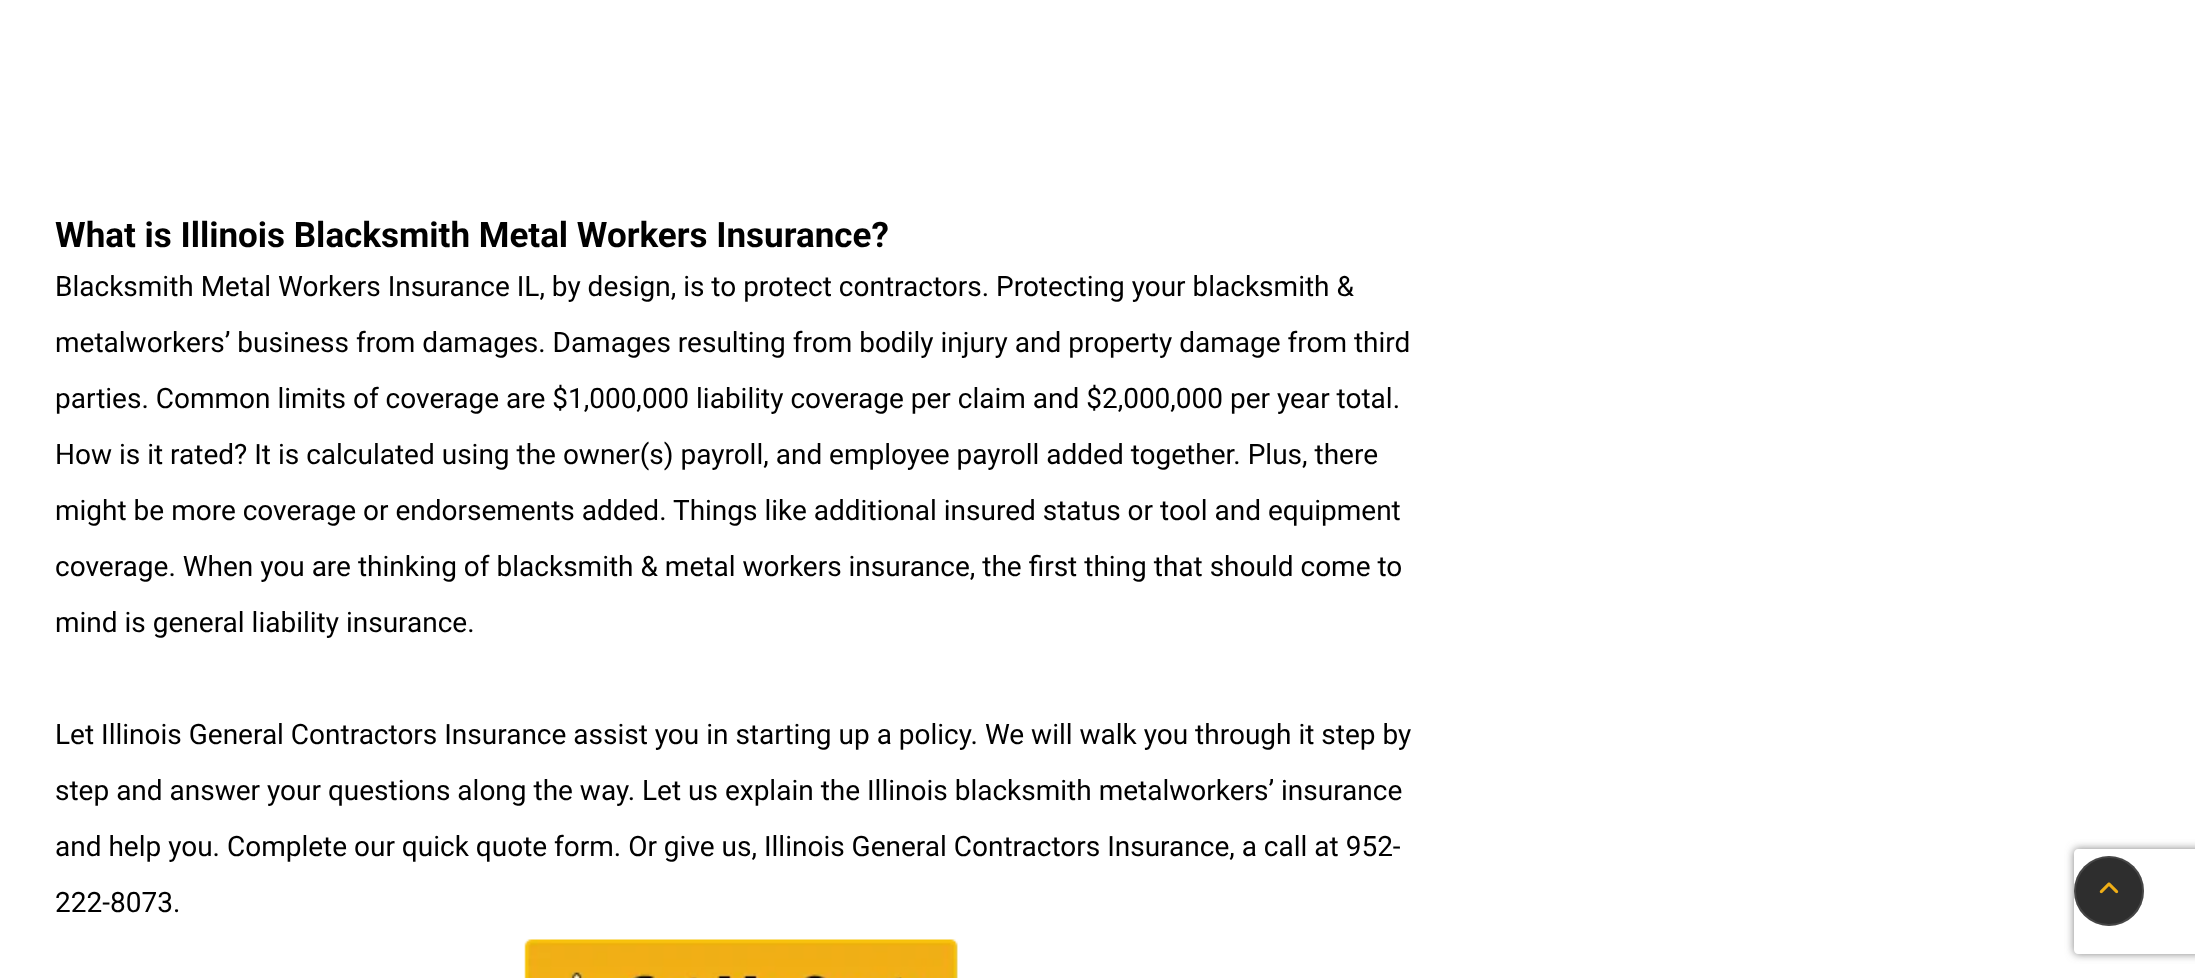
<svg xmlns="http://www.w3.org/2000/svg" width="2195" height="978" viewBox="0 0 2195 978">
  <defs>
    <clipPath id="clip1"><path d="M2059 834H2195V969H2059ZM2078 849H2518C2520 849 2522 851 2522 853V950C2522 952 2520 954 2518 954H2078C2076 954 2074 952 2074 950V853C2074 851 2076 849 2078 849Z" clip-rule="evenodd"/></clipPath>
    <filter id="blur1" x="-50%" y="-200%" width="200%" height="500%"><feGaussianBlur stdDeviation="4.5"/></filter>
  </defs>
  <rect width="100%" height="100%" fill="#ffffff"/>
  <text x="55" y="247" font-family="Roboto" font-size="35" font-weight="bold" fill="#000000">What is Illinois Blacksmith Metal Workers Insurance?</text>
  <text x="55" y="296" font-family="Roboto" font-size="28" fill="#000000">Blacksmith Metal Workers Insurance IL, by design, is to protect contractors. Protecting your blacksmith &amp;</text>
  <text x="55" y="352" font-family="Roboto" font-size="28" fill="#000000">metalworkers’ business from damages. Damages resulting from bodily injury and property damage from third</text>
  <text x="55" y="408" font-family="Roboto" font-size="28" fill="#000000">parties. Common limits of coverage are $1,000,000 liability coverage per claim and $2,000,000 per year total.</text>
  <text x="55" y="464" font-family="Roboto" font-size="28" fill="#000000">How is it rated? It is calculated using the owner(s) payroll, and employee payroll added together. Plus, there</text>
  <text x="55" y="520" font-family="Roboto" font-size="28" fill="#000000">might be more coverage or endorsements added. Things like additional insured status or tool and equipment</text>
  <text x="55" y="576" font-family="Roboto" font-size="28" fill="#000000">coverage. When you are thinking of blacksmith &amp; metal workers insurance, the first thing that should come to</text>
  <text x="55" y="632" font-family="Roboto" font-size="28" fill="#000000">mind is general liability insurance.</text>
  <text x="55" y="744" font-family="Roboto" font-size="28" fill="#000000">Let Illinois General Contractors Insurance assist you in starting up a policy. We will walk you through it step by</text>
  <text x="55" y="800" font-family="Roboto" font-size="28" fill="#000000">step and answer your questions along the way. Let us explain the Illinois blacksmith metalworkers’ insurance</text>
  <text x="55" y="856" font-family="Roboto" font-size="28" fill="#000000">and help you. Complete our quick quote form. Or give us, Illinois General Contractors Insurance, a call at 952-</text>
  <text x="55" y="912" font-family="Roboto" font-size="28" fill="#000000">222-8073.</text>
  <image x="524" y="939" width="434" height="39" href="img1.png"/>
  <g clip-path="url(#clip1)">
    <rect x="2074" y="849" width="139" height="105" rx="4" fill="#808080" filter="url(#blur1)"/>
  </g>
  <circle cx="2109" cy="891" r="34" fill="none" stroke="#a7a7a7" stroke-opacity="0.2" stroke-width="2"/>
  <circle cx="2109" cy="891" r="35" fill="#2e2e2e"/>
  <circle cx="2109" cy="891" r="34" fill="none" stroke="#a7a7a7" stroke-opacity="0.2" stroke-width="2"/>
  <image x="2099" y="882" width="20" height="12" href="img2.png"/>
</svg>
